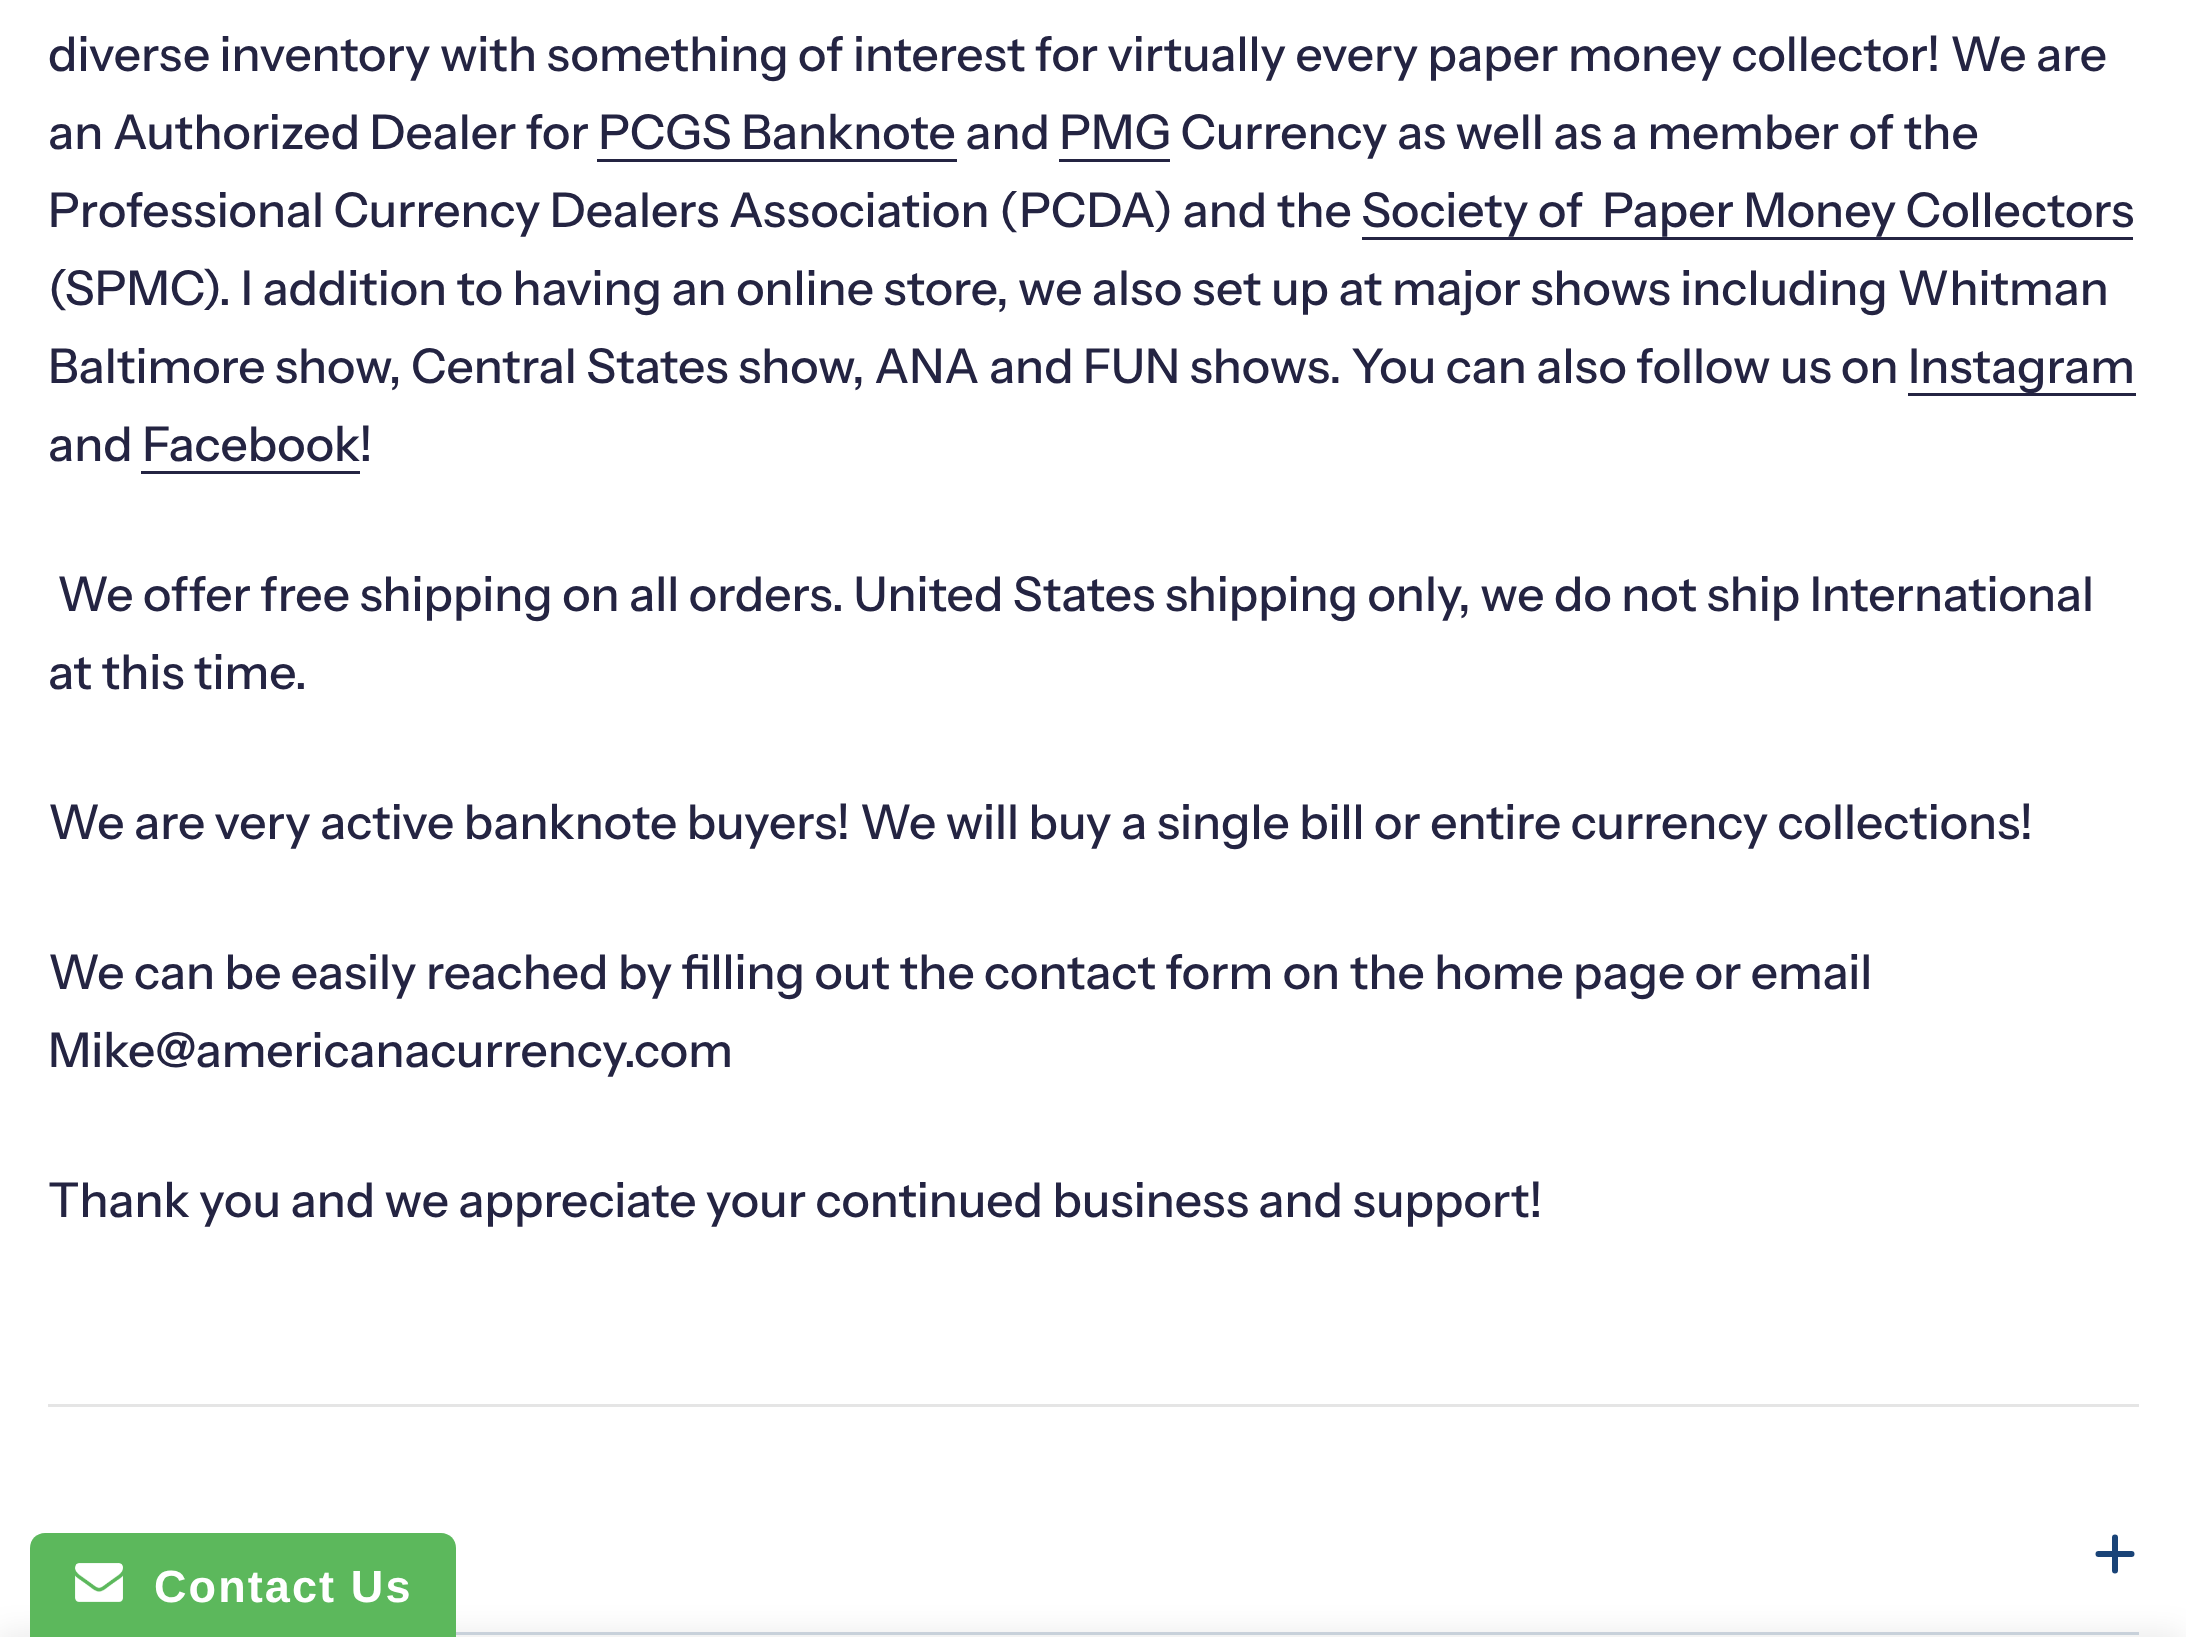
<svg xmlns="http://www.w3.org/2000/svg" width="2186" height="1637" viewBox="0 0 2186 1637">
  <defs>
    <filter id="blur1" x="-50%" y="-200%" width="200%" height="500%"><feGaussianBlur stdDeviation="15"/></filter>
  </defs>
  <rect width="100%" height="100%" fill="#ffffff"/>
  <text x="48" y="71" font-family="Instrument Sans" font-size="48" font-weight="500" fill="#242442">diverse inventory with something of interest for virtually every paper money collector! We are</text>
  <text x="48" y="149" font-family="Instrument Sans" font-size="48" font-weight="500" fill="#242442">an Authorized Dealer for PCGS Banknote and PMG Currency as well as a member of the</text>
  <rect x="597" y="159" width="360" height="3" fill="#242442"/>
  <rect x="1059" y="159" width="111" height="3" fill="#242442"/>
  <text x="48" y="227" font-family="Instrument Sans" font-size="48" font-weight="500" fill="#242442" xml:space="preserve">Professional Currency Dealers Association (PCDA) and the Society of  Paper Money Collectors</text>
  <rect x="1362" y="237" width="771" height="3" fill="#242442"/>
  <text x="48" y="305" font-family="Instrument Sans" font-size="48" font-weight="500" fill="#242442">(SPMC). I addition to having an online store, we also set up at major shows including Whitman</text>
  <text x="48" y="383" font-family="Instrument Sans" font-size="48" font-weight="500" fill="#242442">Baltimore show, Central States show, ANA and FUN shows. You can also follow us on</text>
  <rect x="1908" y="393" width="228" height="3" fill="#242442"/>
  <text x="1908" y="383" font-family="Instrument Sans" font-size="48" font-weight="500" fill="#242442">Instagram</text>
  <text x="48" y="461" font-family="Instrument Sans" font-size="48" font-weight="500" fill="#242442">and Facebook</text>
  <text x="359" y="461" font-family="Instrument Sans" font-size="48" font-weight="500" fill="#242442">!</text>
  <rect x="141" y="471" width="219" height="3" fill="#242442"/>
  <text x="57" y="611" font-family="Instrument Sans" font-size="48" font-weight="500" fill="#242442">We offer free shipping on all orders. United States shipping only, we do not ship International</text>
  <text x="48" y="689" font-family="Instrument Sans" font-size="48" font-weight="500" fill="#242442">at this time.</text>
  <text x="48" y="839" font-family="Instrument Sans" font-size="48" font-weight="500" fill="#242442">We are very active banknote buyers! We will buy a single bill or entire currency collections!</text>
  <text x="48" y="989" font-family="Instrument Sans" font-size="48" font-weight="500" fill="#242442">We can be easily reached by filling out the contact form on the home page or email</text>
  <text x="48" y="1067" font-family="Instrument Sans" font-size="48" font-weight="500" fill="#242442">Mike@americanacurrency.com</text>
  <text x="48" y="1217" font-family="Instrument Sans" font-size="48" font-weight="500" fill="#242442">Thank you and we appreciate your continued business and support!</text>
  <rect x="48" y="1404" width="2091" height="3" fill="#e5e5e5"/>
  <rect x="456" y="1632" width="1683" height="3" fill="#d1dae4"/>
  <path d="M2098.5 1554H2131.5M2115 1537.5V1570.5" fill="none" stroke="#1a4478" stroke-width="6" stroke-linecap="round" stroke-linejoin="round"/>
  <rect x="-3" y="1632" width="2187" height="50" fill="#000000" fill-opacity="0.08" filter="url(#blur1)"/>
  <path d="M45 1533H441C449.5 1533 456 1539.5 456 1548V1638H30V1548C30 1539.5 36.5 1533 45 1533Z" fill="#5cb85c"/>
  <image x="75" y="1563" width="48" height="39" href="img1.png"/>
  <text x="154" y="1602" font-family="Liberation Sans" font-size="45" font-weight="bold" letter-spacing="2.1" fill="#ffffff">Contact Us</text>
</svg>
